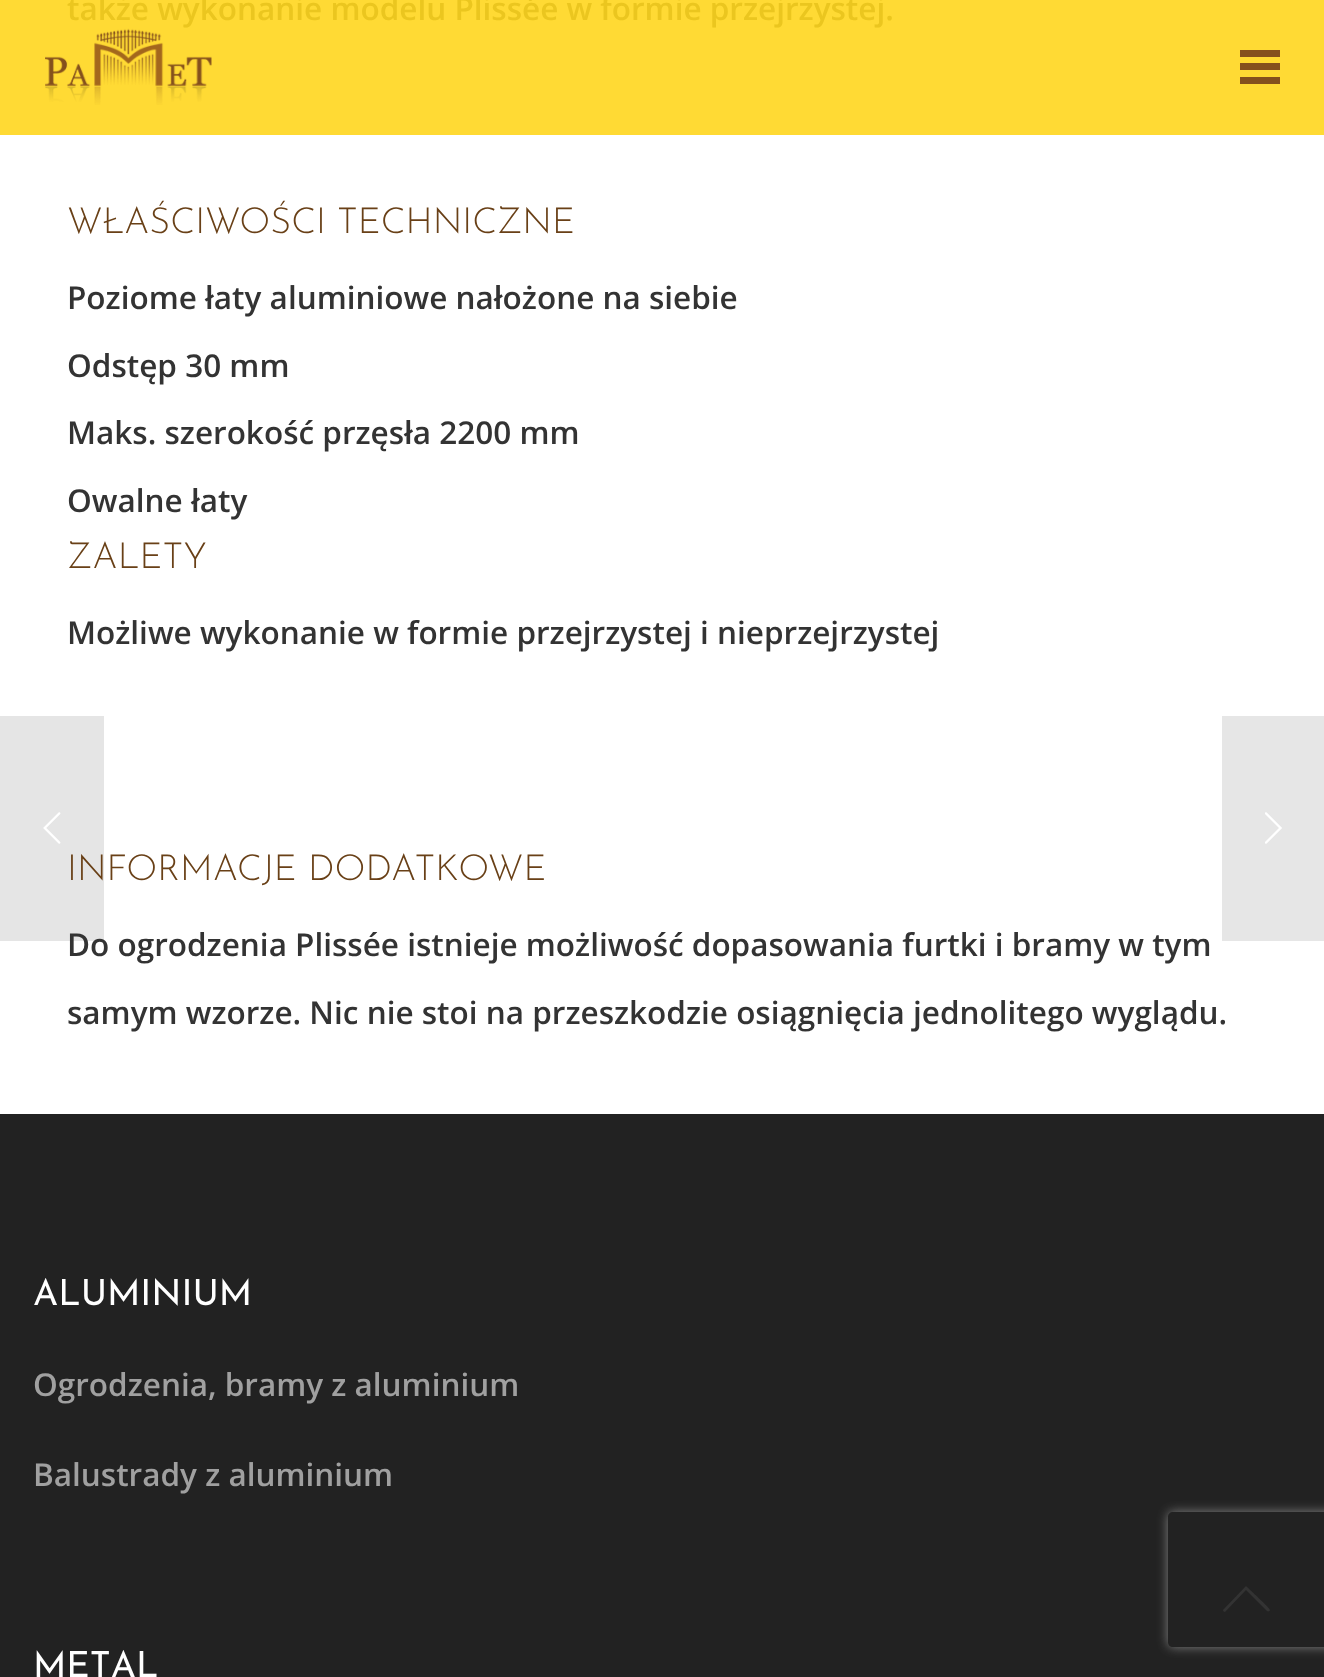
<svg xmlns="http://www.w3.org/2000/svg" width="1324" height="1677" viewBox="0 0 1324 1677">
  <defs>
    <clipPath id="clip1"><path d="M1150 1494H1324V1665H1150ZM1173 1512H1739C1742 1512 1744 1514 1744 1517V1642C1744 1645 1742 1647 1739 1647H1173C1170 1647 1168 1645 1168 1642V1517C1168 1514 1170 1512 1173 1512Z" clip-rule="evenodd"/></clipPath>
    <filter id="blur1" x="-50%" y="-200%" width="200%" height="500%"><feGaussianBlur stdDeviation="5.5"/></filter>
  </defs>
  <rect width="100%" height="100%" fill="#ffffff"/>
  <rect x="0" y="0" width="1324" height="135" fill="#ffda34"/>
  <text x="67" y="20" font-family="Open Sans" font-size="31.5" font-weight="600" fill="#ebc61f">także wykonanie modelu Plissée w formie przejrzystej.</text>
  <text x="67" y="233" font-family="Josefin Sans" font-size="36" font-weight="300" fill="#694017">WŁAŚCIWOŚCI TECHNICZNE</text>
  <text x="67" y="309" font-family="Open Sans" font-size="31.5" font-weight="600" fill="#333333">Poziome łaty aluminiowe nałożone na siebie</text>
  <text x="67" y="377" font-family="Open Sans" font-size="31.5" font-weight="600" fill="#333333">Odstęp 30 mm</text>
  <text x="67" y="444" font-family="Open Sans" font-size="31.5" font-weight="600" fill="#333333">Maks. szerokość przęsła 2200 mm</text>
  <text x="67" y="512" font-family="Open Sans" font-size="31.5" font-weight="600" fill="#333333">Owalne łaty</text>
  <text x="67" y="568" font-family="Josefin Sans" font-size="36" font-weight="300" fill="#694017">ZALETY</text>
  <text x="67" y="644" font-family="Open Sans" font-size="31.5" font-weight="600" fill="#333333">Możliwe wykonanie w formie przejrzystej i nieprzejrzystej</text>
  <rect x="0" y="716" width="104" height="225" fill="#000000" fill-opacity="0.1"/>
  <image x="43" y="812" width="18" height="32" href="img1.png"/>
  <rect x="1222" y="716" width="102" height="225" fill="#e6e6e6"/>
  <image x="1265" y="812" width="17" height="32" href="img2.png"/>
  <text x="67" y="880" font-family="Josefin Sans" font-size="36" font-weight="300" fill="#694017">INFORMACJE DODATKOWE</text>
  <text x="67" y="956" font-family="Open Sans" font-size="31.5" font-weight="600" fill="#333333">Do ogrodzenia Plissée istnieje możliwość dopasowania furtki i bramy w tym</text>
  <text x="67" y="1024" font-family="Open Sans" font-size="31.5" font-weight="600" fill="#333333">samym wzorze. Nic nie stoi na przeszkodzie osiągnięcia jednolitego wyglądu.</text>
  <image x="45" y="28" width="167" height="77" href="img3.png"/>
  <rect x="1240" y="50" width="40" height="7" fill="#84501d"/>
  <rect x="1240" y="63" width="40" height="7" fill="#84501d"/>
  <rect x="1240" y="77" width="40" height="7" fill="#84501d"/>
  <rect x="0" y="1114" width="1324" height="563" fill="#222222"/>
  <text x="33" y="1305" font-family="Josefin Sans" font-size="36" fill="#ffffff">ALUMINIUM</text>
  <text x="33" y="1396" font-family="Open Sans" font-size="31.5" font-weight="600" fill="#a0a0a0">Ogrodzenia, bramy z aluminium</text>
  <text x="33" y="1486" font-family="Open Sans" font-size="31.5" font-weight="600" fill="#a0a0a0">Balustrady z aluminium</text>
  <text x="33" y="1677" font-family="Josefin Sans" font-size="36" fill="#ffffff">METAL</text>
  <g clip-path="url(#clip1)">
    <rect x="1168" y="1512" width="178" height="135" rx="5" fill="#808080" filter="url(#blur1)"/>
  </g>
  <path d="M1270 1610C1270 1611 1268 1612 1267 1611L1246 1590L1225 1612C1224 1612 1223 1611 1223 1610L1246 1586C1249 1589 1270 1608 1270 1610Z" fill="#333333"/>
</svg>
